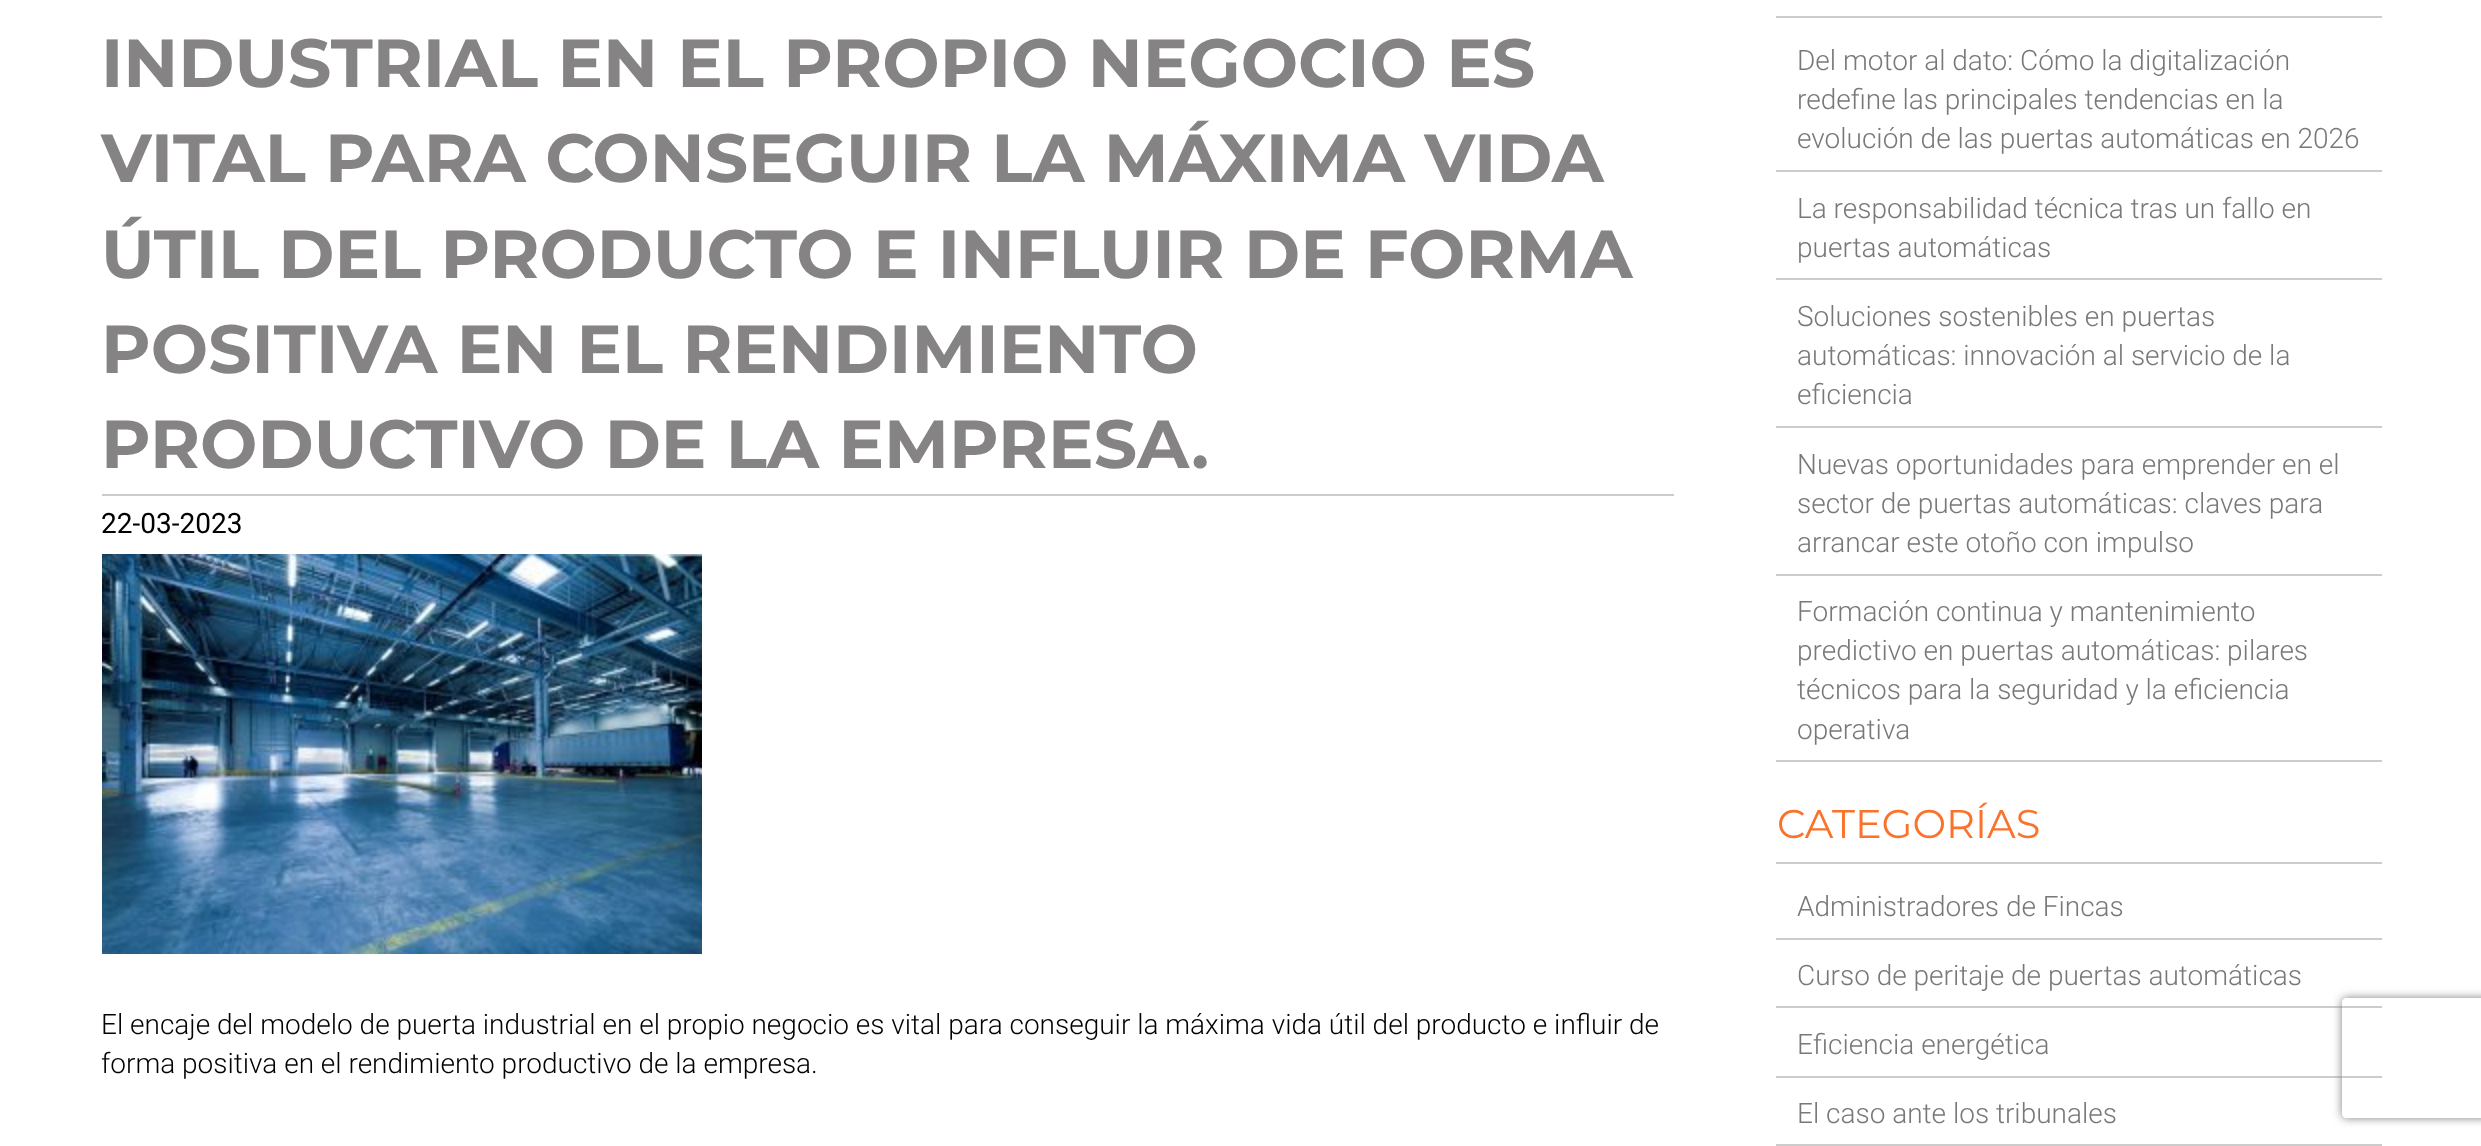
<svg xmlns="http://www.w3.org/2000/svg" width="2481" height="1146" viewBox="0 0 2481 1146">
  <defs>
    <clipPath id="clip1"><path d="M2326 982H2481V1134H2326ZM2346 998H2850C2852 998 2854 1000 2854 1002V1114C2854 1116 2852 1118 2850 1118H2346C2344 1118 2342 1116 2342 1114V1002C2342 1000 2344 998 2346 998Z" clip-rule="evenodd"/></clipPath>
    <filter id="blur1" x="-50%" y="-200%" width="200%" height="500%"><feGaussianBlur stdDeviation="5"/></filter>
  </defs>
  <rect width="100%" height="100%" fill="#ffffff"/>
  <rect x="102" y="494" width="1572" height="2" fill="#cccccc"/>
  <text x="101" y="87" font-family="Montserrat" font-size="68" font-weight="bold" fill="#858384">INDUSTRIAL EN EL PROPIO NEGOCIO ES</text>
  <text x="101" y="182" font-family="Montserrat" font-size="68" font-weight="bold" fill="#858384">VITAL PARA CONSEGUIR LA MÁXIMA VIDA</text>
  <text x="101" y="278" font-family="Montserrat" font-size="68" font-weight="bold" fill="#858384">ÚTIL DEL PRODUCTO E INFLUIR DE FORMA</text>
  <text x="101" y="373" font-family="Montserrat" font-size="68" font-weight="bold" fill="#858384">POSITIVA EN EL RENDIMIENTO</text>
  <text x="101" y="468" font-family="Montserrat" font-size="68" font-weight="bold" fill="#858384">PRODUCTIVO DE LA EMPRESA.</text>
  <text x="101" y="533" font-family="Roboto" font-size="28" fill="#000000">22-03-2023</text>
  <image x="102" y="554" width="600" height="400" href="img1.png"/>
  <text x="101" y="1034" font-family="Roboto" font-size="28" font-weight="300" fill="#000000">El encaje del modelo de puerta industrial en el propio negocio es vital para conseguir la máxima vida útil del producto e influir de</text>
  <text x="101" y="1073" font-family="Roboto" font-size="28" font-weight="300" fill="#000000">forma positiva en el rendimiento productivo de la empresa.</text>
  <rect x="1776" y="16" width="606" height="2" fill="#cccccc"/>
  <rect x="1776" y="170" width="606" height="2" fill="#cccccc"/>
  <text x="1797" y="70" font-family="Roboto" font-size="28" font-weight="300" fill="#787878">Del motor al dato: Cómo la digitalización</text>
  <text x="1797" y="109" font-family="Roboto" font-size="28" font-weight="300" fill="#787878">redefine las principales tendencias en la</text>
  <text x="1797" y="148" font-family="Roboto" font-size="28" font-weight="300" fill="#787878">evolución de las puertas automáticas en 2026</text>
  <rect x="1776" y="278" width="606" height="2" fill="#cccccc"/>
  <text x="1797" y="218" font-family="Roboto" font-size="28" font-weight="300" fill="#787878">La responsabilidad técnica tras un fallo en</text>
  <text x="1797" y="257" font-family="Roboto" font-size="28" font-weight="300" fill="#787878">puertas automáticas</text>
  <rect x="1776" y="426" width="606" height="2" fill="#cccccc"/>
  <text x="1797" y="326" font-family="Roboto" font-size="28" font-weight="300" fill="#787878">Soluciones sostenibles en puertas</text>
  <text x="1797" y="365" font-family="Roboto" font-size="28" font-weight="300" fill="#787878">automáticas: innovación al servicio de la</text>
  <text x="1797" y="404" font-family="Roboto" font-size="28" font-weight="300" fill="#787878">eficiencia</text>
  <rect x="1776" y="574" width="606" height="2" fill="#cccccc"/>
  <text x="1797" y="474" font-family="Roboto" font-size="28" font-weight="300" fill="#787878">Nuevas oportunidades para emprender en el</text>
  <text x="1797" y="513" font-family="Roboto" font-size="28" font-weight="300" fill="#787878">sector de puertas automáticas: claves para</text>
  <text x="1797" y="552" font-family="Roboto" font-size="28" font-weight="300" fill="#787878">arrancar este otoño con impulso</text>
  <rect x="1776" y="760" width="606" height="2" fill="#cccccc"/>
  <text x="1797" y="621" font-family="Roboto" font-size="28" font-weight="300" fill="#787878">Formación continua y mantenimiento</text>
  <text x="1797" y="660" font-family="Roboto" font-size="28" font-weight="300" fill="#787878">predictivo en puertas automáticas: pilares</text>
  <text x="1797" y="699" font-family="Roboto" font-size="28" font-weight="300" fill="#787878">técnicos para la seguridad y la eficiencia</text>
  <text x="1797" y="739" font-family="Roboto" font-size="28" font-weight="300" fill="#787878">operativa</text>
  <rect x="1776" y="862" width="606" height="2" fill="#cccccc"/>
  <text x="1777" y="838" font-family="Montserrat" font-size="40" fill="#fb722b">CATEGORÍAS</text>
  <rect x="1776" y="938" width="606" height="2" fill="#cccccc"/>
  <text x="1797" y="916" font-family="Roboto" font-size="28" font-weight="300" fill="#787878">Administradores de Fincas</text>
  <rect x="1776" y="1006" width="606" height="2" fill="#cccccc"/>
  <text x="1797" y="985" font-family="Roboto" font-size="28" font-weight="300" fill="#787878">Curso de peritaje de puertas automáticas</text>
  <rect x="1776" y="1076" width="606" height="2" fill="#cccccc"/>
  <text x="1797" y="1054" font-family="Roboto" font-size="28" font-weight="300" fill="#787878">Eficiencia energética</text>
  <rect x="1776" y="1144" width="606" height="2" fill="#cccccc"/>
  <text x="1797" y="1123" font-family="Roboto" font-size="28" font-weight="300" fill="#787878">El caso ante los tribunales</text>
  <g clip-path="url(#clip1)">
    <rect x="2342" y="998" width="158" height="120" rx="4" fill="#808080" filter="url(#blur1)"/>
  </g>
</svg>
